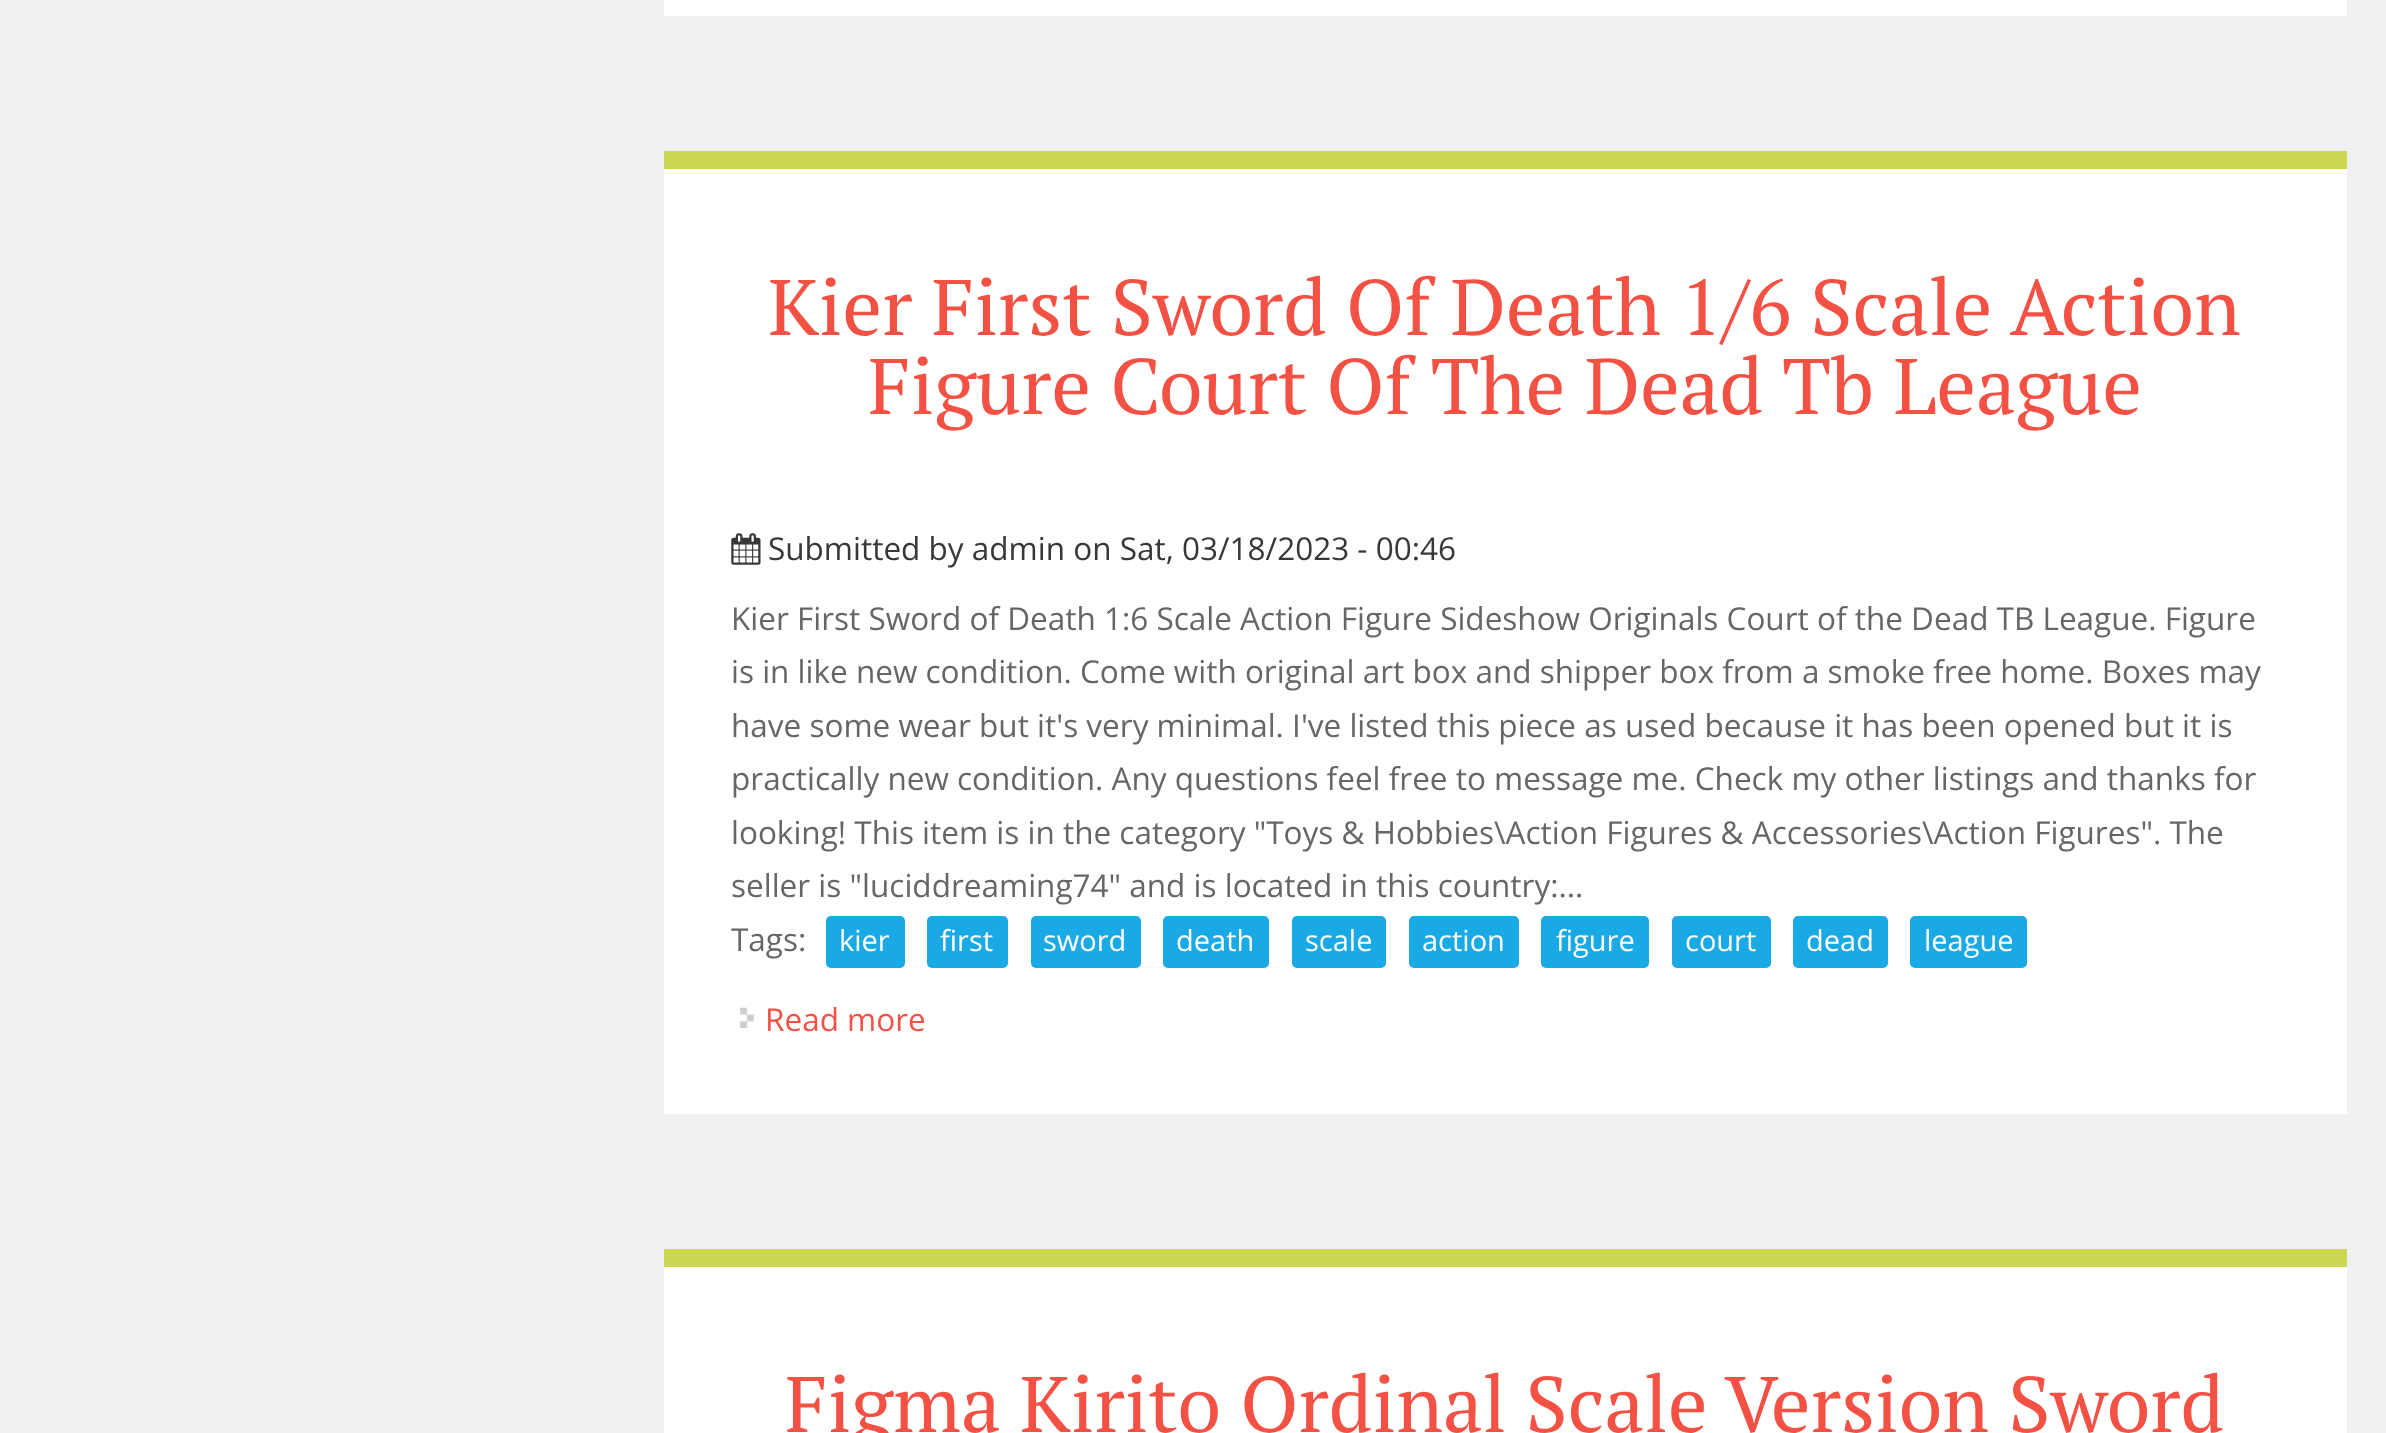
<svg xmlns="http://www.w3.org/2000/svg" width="2386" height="1433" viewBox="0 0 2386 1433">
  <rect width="100%" height="100%" fill="#f0f1f3"/>
  <rect x="664" y="0" width="1683" height="16" fill="#ffffff"/>
  <rect x="664" y="169" width="1683" height="945" fill="#ffffff"/>
  <rect x="664" y="151" width="1683" height="18" fill="#cdd851"/>
  <text x="768" y="335" font-family="PT Serif" font-size="78.75" fill="#f45145">Kier First Sword Of Death 1/6 Scale Action</text>
  <text x="868" y="414" font-family="PT Serif" font-size="78.75" fill="#f45145">Figure Court Of The Dead Tb League</text>
  <image x="731" y="533" width="30" height="32" href="img1.png"/>
  <text x="768" y="560" font-family="Open Sans" font-size="31.5" fill="#383838">Submitted by admin on Sat, 03/18/2023 - 00:46</text>
  <text x="731" y="630" font-family="Open Sans" font-size="31.5" fill="#666666">Kier First Sword of Death 1:6 Scale Action Figure Sideshow Originals Court of the Dead TB League. Figure</text>
  <text x="731" y="683" font-family="Open Sans" font-size="31.5" fill="#666666">is in like new condition. Come with original art box and shipper box from a smoke free home. Boxes may</text>
  <text x="731" y="737" font-family="Open Sans" font-size="31.5" fill="#666666">have some wear but it's very minimal. I've listed this piece as used because it has been opened but it is</text>
  <text x="731" y="790" font-family="Open Sans" font-size="31.5" fill="#666666">practically new condition. Any questions feel free to message me. Check my other listings and thanks for</text>
  <text x="731" y="844" font-family="Open Sans" font-size="31.5" fill="#666666">looking! This item is in the category "Toys &amp; Hobbies\Action Figures &amp; Accessories\Action Figures". The</text>
  <text x="731" y="897" font-family="Open Sans" font-size="31.5" fill="#666666">seller is "luciddreaming74" and is located in this country:...</text>
  <text x="731" y="951" font-family="Open Sans" font-size="31.5" fill="#666666">Tags:</text>
  <rect x="826" y="916" width="79" height="52" rx="5" fill="#19a9e5"/>
  <text x="839" y="951" font-family="Open Sans" font-size="29" fill="#ffffff">kier</text>
  <rect x="927" y="916" width="81" height="52" rx="5" fill="#19a9e5"/>
  <text x="940" y="951" font-family="Open Sans" font-size="29" fill="#ffffff">first</text>
  <rect x="1031" y="916" width="110" height="52" rx="5" fill="#19a9e5"/>
  <text x="1043" y="951" font-family="Open Sans" font-size="29" fill="#ffffff">sword</text>
  <rect x="1163" y="916" width="106" height="52" rx="5" fill="#19a9e5"/>
  <text x="1176" y="951" font-family="Open Sans" font-size="29" fill="#ffffff">death</text>
  <rect x="1292" y="916" width="94" height="52" rx="5" fill="#19a9e5"/>
  <text x="1305" y="951" font-family="Open Sans" font-size="29" fill="#ffffff">scale</text>
  <rect x="1409" y="916" width="110" height="52" rx="5" fill="#19a9e5"/>
  <text x="1422" y="951" font-family="Open Sans" font-size="29" fill="#ffffff">action</text>
  <rect x="1541" y="916" width="108" height="52" rx="5" fill="#19a9e5"/>
  <text x="1556" y="951" font-family="Open Sans" font-size="29" fill="#ffffff">figure</text>
  <rect x="1672" y="916" width="99" height="52" rx="5" fill="#19a9e5"/>
  <text x="1685" y="951" font-family="Open Sans" font-size="29" fill="#ffffff">court</text>
  <rect x="1793" y="916" width="95" height="52" rx="5" fill="#19a9e5"/>
  <text x="1806" y="951" font-family="Open Sans" font-size="29" fill="#ffffff">dead</text>
  <rect x="1910" y="916" width="117" height="52" rx="5" fill="#19a9e5"/>
  <text x="1924" y="951" font-family="Open Sans" font-size="29" fill="#ffffff">league</text>
  <image x="740" y="1007" width="15" height="21" href="img2.png"/>
  <text x="765" y="1031" font-family="Open Sans" font-size="31.5" fill="#f45145">Read more</text>
  <rect x="664" y="1267" width="1683" height="166" fill="#ffffff"/>
  <rect x="664" y="1249" width="1683" height="18" fill="#cdd851"/>
  <text x="785" y="1432" font-family="PT Serif" font-size="78.75" fill="#f45145">Figma Kirito Ordinal Scale Version Sword</text>
</svg>
